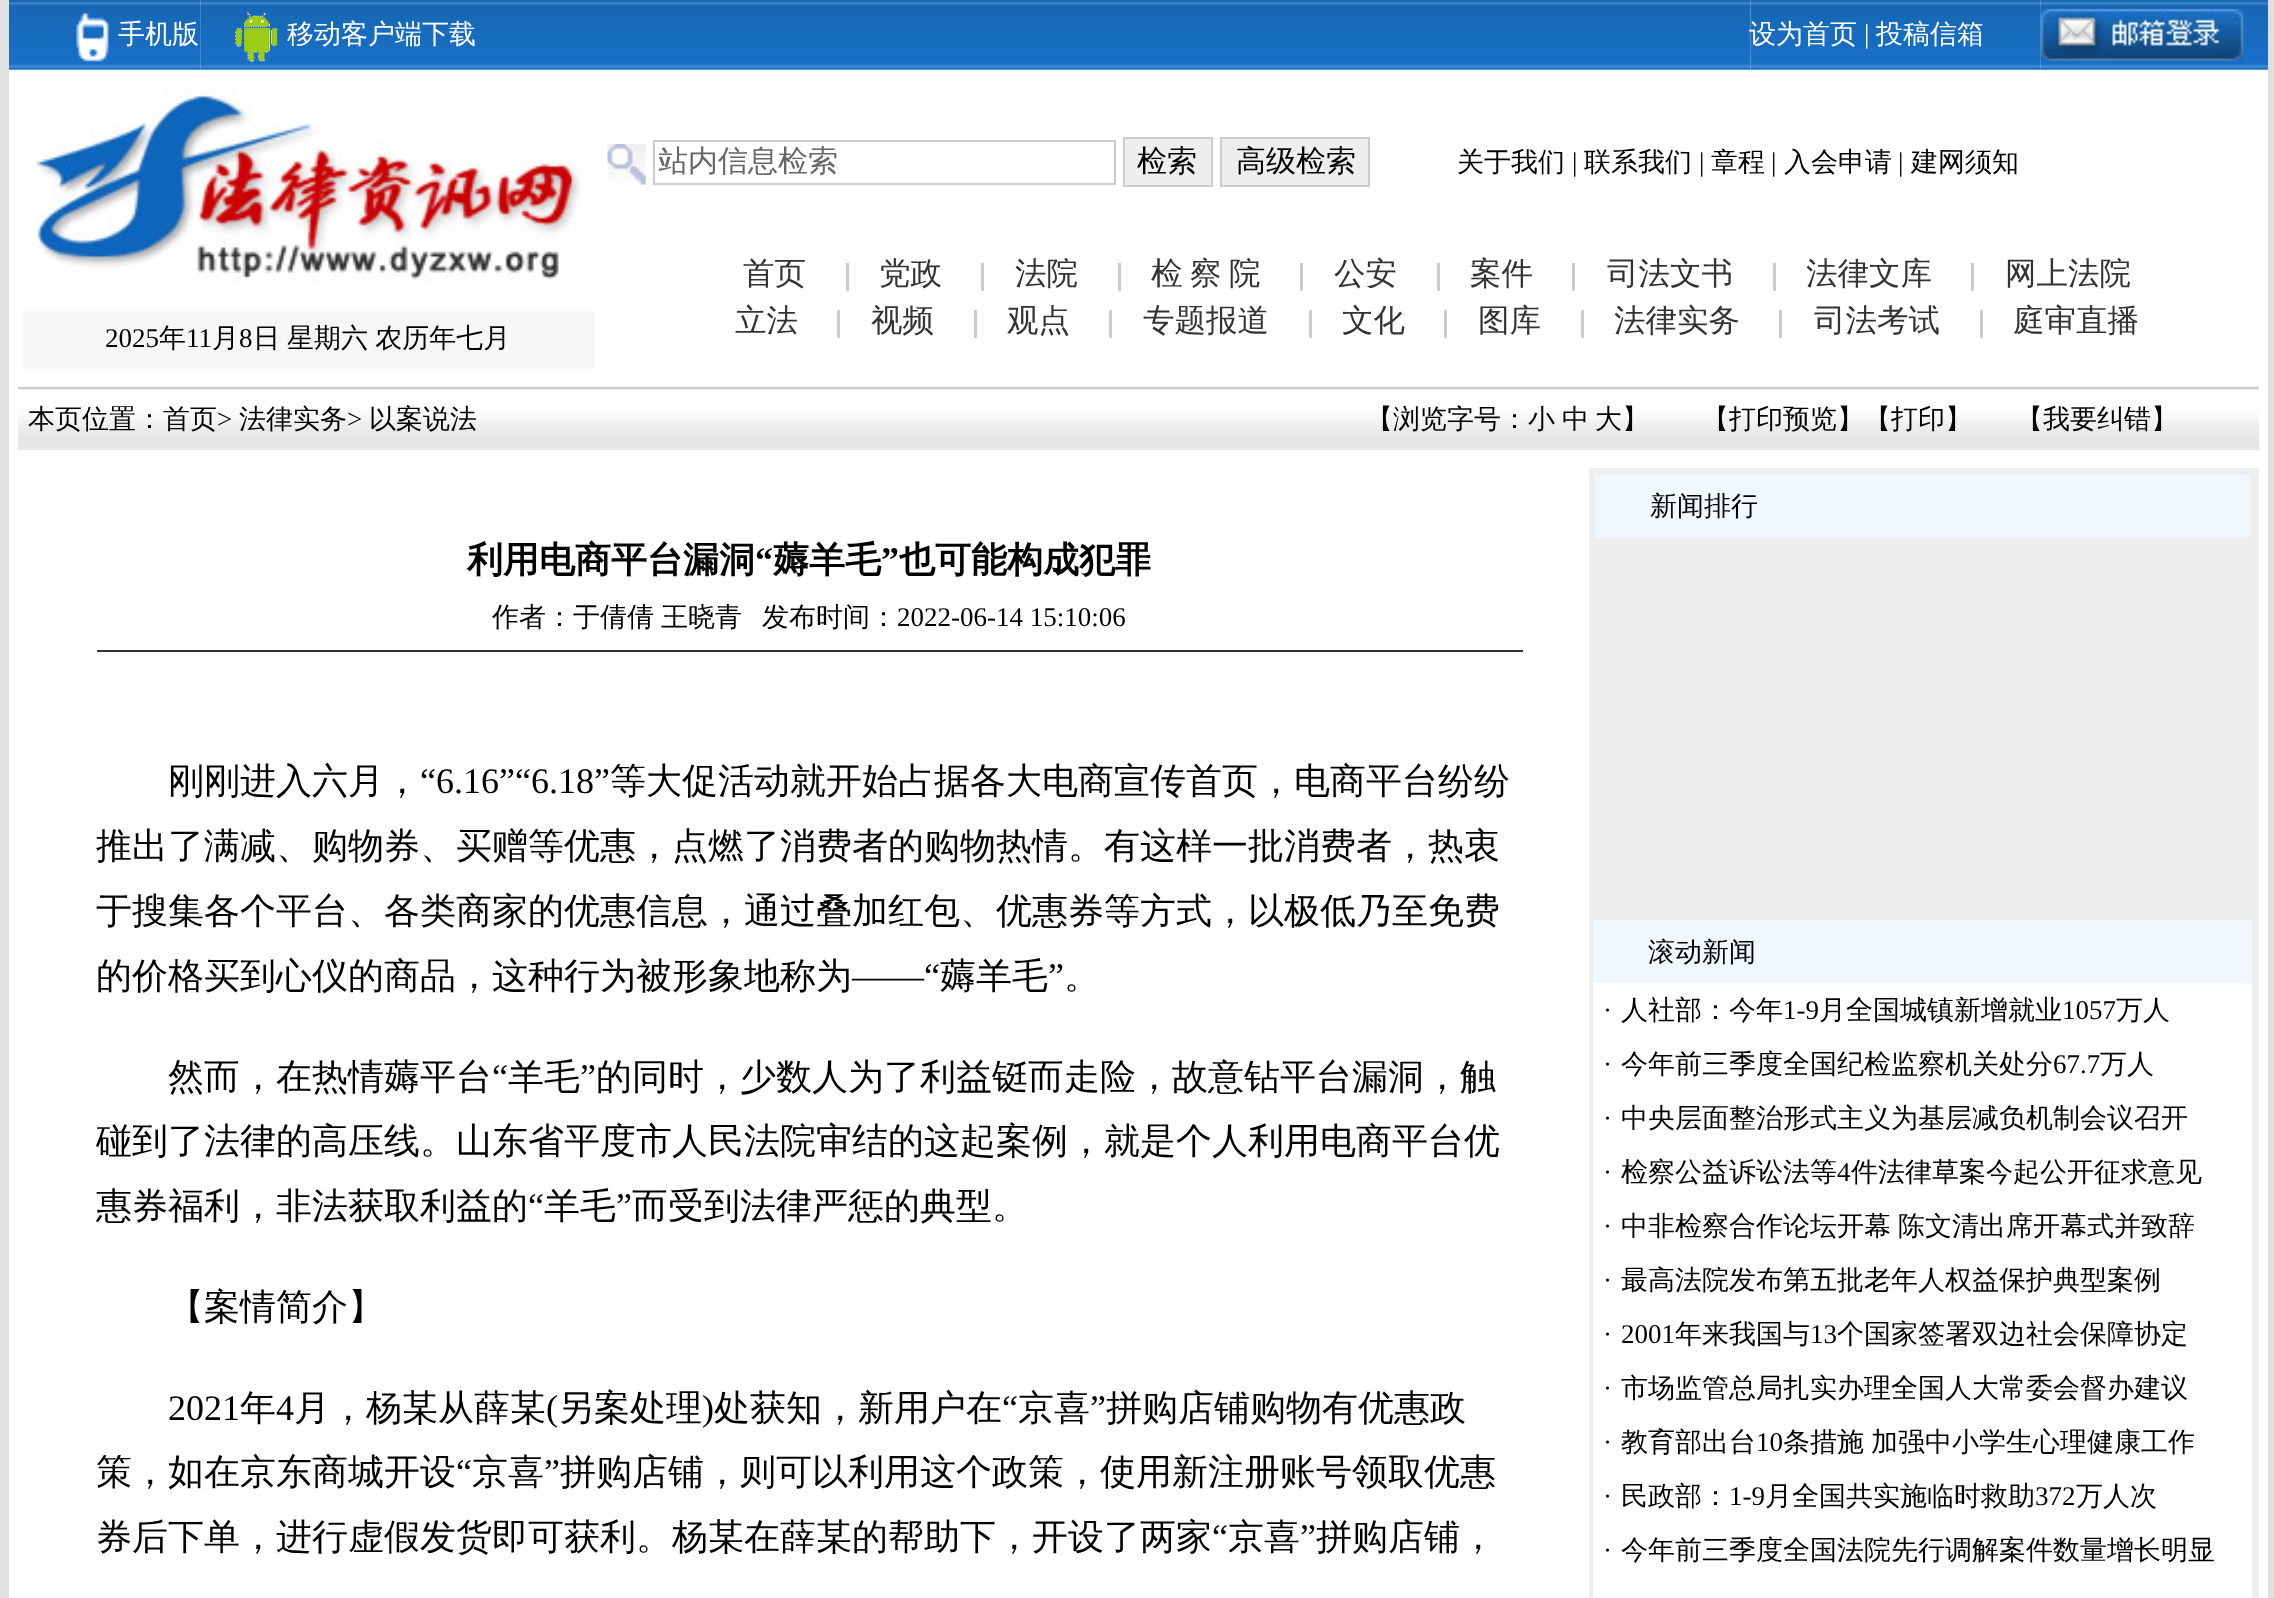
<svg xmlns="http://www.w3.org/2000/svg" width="2274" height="1598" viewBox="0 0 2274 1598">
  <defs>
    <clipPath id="clip1"><rect x="659" y="142" width="450" height="40"/></clipPath>
  </defs>
  <rect width="100%" height="100%" fill="#e0e0e0"/>
  <rect x="9" y="0" width="2259" height="1598" fill="#ffffff"/>
  <image x="9" y="0" width="192" height="70" href="img1.png"/>
  <image x="76" y="13" width="33" height="49" href="img2.png"/>
  <text x="118" y="43" font-family="WenQuanYi Zen Hei" font-size="27" font-weight="500" fill="#ffffff">手机版</text>
  <image x="200" y="0" width="277" height="70" href="img3.png"/>
  <image x="235" y="12" width="43" height="51" href="img4.png"/>
  <text x="287" y="43" font-family="WenQuanYi Zen Hei" font-size="27" font-weight="500" fill="#ffffff">移动客户端下载</text>
  <image x="477" y="0" width="1274" height="70" href="img5.png"/>
  <image x="1750" y="0" width="291" height="70" href="img6.png"/>
  <text x="1749" y="43" font-family="WenQuanYi Zen Hei" font-size="27" font-weight="500" fill="#ffffff">设为首页</text>
  <text x="1864" y="43" font-family="Liberation Serif" font-size="27" fill="#ffffff">|</text>
  <text x="1876" y="43" font-family="WenQuanYi Zen Hei" font-size="27" font-weight="500" fill="#ffffff">投稿信箱</text>
  <image x="2040" y="0" width="228" height="70" href="img7.png"/>
  <image x="2040" y="9" width="204" height="52" href="img8.png"/>
  <image x="36" y="88" width="545" height="197" href="img9.png"/>
  <rect x="23" y="311" width="571" height="58" fill="#f6f6f6"/>
  <text x="105" y="347" font-family="Liberation Serif" font-size="27" fill="#000000">2025</text>
  <text x="159" y="347" font-family="WenQuanYi Zen Hei" font-size="27" font-weight="500" fill="#000000">年</text>
  <text x="186" y="347" font-family="Liberation Serif" font-size="27" fill="#000000">11</text>
  <text x="212" y="347" font-family="WenQuanYi Zen Hei" font-size="27" font-weight="500" fill="#000000">月</text>
  <text x="239" y="347" font-family="Liberation Serif" font-size="27" fill="#000000">8</text>
  <text x="253" y="347" word-spacing="-1" font-family="WenQuanYi Zen Hei" font-size="27" font-weight="500" fill="#000000">日 星期六 农历年七月</text>
  <image x="607" y="144" width="39" height="41" href="img10.png"/>
  <rect x="654" y="141" width="461" height="43" fill="none" stroke="#cccccc" stroke-width="2"/>
  <g clip-path="url(#clip1)">
    <text x="658" y="171" font-family="WenQuanYi Zen Hei" font-size="30" font-weight="500" fill="#666666">站内信息检索</text>
  </g>
  <rect x="1124" y="138" width="88" height="48" fill="#eeeeee" stroke="#cccccc" stroke-width="2"/>
  <text x="1137" y="171" font-family="WenQuanYi Zen Hei" font-size="30" font-weight="500" fill="#000000">检索</text>
  <rect x="1221" y="138" width="148" height="48" fill="#eeeeee" stroke="#cccccc" stroke-width="2"/>
  <text x="1236" y="171" font-family="WenQuanYi Zen Hei" font-size="30" font-weight="500" fill="#000000">高级检索</text>
  <text x="1457" y="171" font-family="WenQuanYi Zen Hei" font-size="27" font-weight="500" fill="#000000">关于我们</text>
  <text x="1572" y="171" font-family="Liberation Serif" font-size="27" fill="#000000">|</text>
  <text x="1584" y="171" font-family="WenQuanYi Zen Hei" font-size="27" font-weight="500" fill="#000000">联系我们</text>
  <text x="1699" y="171" font-family="Liberation Serif" font-size="27" fill="#000000">|</text>
  <text x="1711" y="171" font-family="WenQuanYi Zen Hei" font-size="27" font-weight="500" fill="#000000">章程</text>
  <text x="1771" y="171" font-family="Liberation Serif" font-size="27" fill="#000000">|</text>
  <text x="1784" y="171" font-family="WenQuanYi Zen Hei" font-size="27" font-weight="500" fill="#000000">入会申请</text>
  <text x="1898" y="171" font-family="Liberation Serif" font-size="27" fill="#000000">|</text>
  <text x="1911" y="171" font-family="WenQuanYi Zen Hei" font-size="27" font-weight="500" fill="#000000">建网须知</text>
  <text x="743" y="284" font-family="WenQuanYi Zen Hei" font-size="31.5" font-weight="500" fill="#333333">首页</text>
  <rect x="846" y="263" width="3" height="28" fill="#cccccc"/>
  <text x="879" y="284" font-family="WenQuanYi Zen Hei" font-size="31.5" font-weight="500" fill="#333333">党政</text>
  <rect x="981" y="263" width="3" height="28" fill="#cccccc"/>
  <text x="1015" y="284" font-family="WenQuanYi Zen Hei" font-size="31.5" font-weight="500" fill="#333333">法院</text>
  <rect x="1118" y="263" width="3" height="28" fill="#cccccc"/>
  <text x="1151" y="284" word-spacing="-2" font-family="WenQuanYi Zen Hei" font-size="31.5" font-weight="500" fill="#333333">检 察 院</text>
  <rect x="1300" y="263" width="3" height="28" fill="#cccccc"/>
  <text x="1334" y="284" font-family="WenQuanYi Zen Hei" font-size="31.5" font-weight="500" fill="#333333">公安</text>
  <rect x="1437" y="263" width="3" height="28" fill="#cccccc"/>
  <text x="1470" y="284" font-family="WenQuanYi Zen Hei" font-size="31.5" font-weight="500" fill="#333333">案件</text>
  <rect x="1572" y="263" width="3" height="28" fill="#cccccc"/>
  <text x="1607" y="284" font-family="WenQuanYi Zen Hei" font-size="31.5" font-weight="500" fill="#333333">司法文书</text>
  <rect x="1773" y="263" width="3" height="28" fill="#cccccc"/>
  <text x="1806" y="284" font-family="WenQuanYi Zen Hei" font-size="31.5" font-weight="500" fill="#333333">法律文库</text>
  <rect x="1971" y="263" width="3" height="28" fill="#cccccc"/>
  <text x="2005" y="284" font-family="WenQuanYi Zen Hei" font-size="31.5" font-weight="500" fill="#333333">网上法院</text>
  <text x="735" y="331" font-family="WenQuanYi Zen Hei" font-size="31.5" font-weight="500" fill="#333333">立法</text>
  <rect x="837" y="310" width="3" height="28" fill="#cccccc"/>
  <text x="871" y="331" font-family="WenQuanYi Zen Hei" font-size="31.5" font-weight="500" fill="#333333">视频</text>
  <rect x="974" y="310" width="3" height="28" fill="#cccccc"/>
  <text x="1007" y="331" font-family="WenQuanYi Zen Hei" font-size="31.5" font-weight="500" fill="#333333">观点</text>
  <rect x="1109" y="310" width="3" height="28" fill="#cccccc"/>
  <text x="1143" y="331" font-family="WenQuanYi Zen Hei" font-size="31.5" font-weight="500" fill="#333333">专题报道</text>
  <rect x="1309" y="310" width="3" height="28" fill="#cccccc"/>
  <text x="1342" y="331" font-family="WenQuanYi Zen Hei" font-size="31.5" font-weight="500" fill="#333333">文化</text>
  <rect x="1444" y="310" width="3" height="28" fill="#cccccc"/>
  <text x="1478" y="331" font-family="WenQuanYi Zen Hei" font-size="31.5" font-weight="500" fill="#333333">图库</text>
  <rect x="1581" y="310" width="3" height="28" fill="#cccccc"/>
  <text x="1614" y="331" font-family="WenQuanYi Zen Hei" font-size="31.5" font-weight="500" fill="#333333">法律实务</text>
  <rect x="1779" y="310" width="3" height="28" fill="#cccccc"/>
  <text x="1814" y="331" font-family="WenQuanYi Zen Hei" font-size="31.5" font-weight="500" fill="#333333">司法考试</text>
  <rect x="1980" y="310" width="3" height="28" fill="#cccccc"/>
  <text x="2013" y="331" font-family="WenQuanYi Zen Hei" font-size="31.5" font-weight="500" fill="#333333">庭审直播</text>
  <image x="18" y="387" width="2241" height="63" href="img11.png"/>
  <text x="28" y="428" font-family="WenQuanYi Zen Hei" font-size="27" font-weight="500" fill="#000000">本页位置：首页</text>
  <text x="217" y="428" font-family="Liberation Serif" font-size="27" fill="#000000">&gt;</text>
  <text x="239" y="428" font-family="WenQuanYi Zen Hei" font-size="27" font-weight="500" fill="#000000">法律实务</text>
  <text x="347" y="428" font-family="Liberation Serif" font-size="27" fill="#000000">&gt;</text>
  <text x="369" y="428" font-family="WenQuanYi Zen Hei" font-size="27" font-weight="500" fill="#000000">以案说法</text>
  <text x="1366" y="428" font-family="WenQuanYi Zen Hei" font-size="27" font-weight="500" fill="#000000">【浏览字号：小</text>
  <text x="1562" y="428" font-family="WenQuanYi Zen Hei" font-size="27" font-weight="500" fill="#000000">中</text>
  <text x="1595" y="428" font-family="WenQuanYi Zen Hei" font-size="27" font-weight="500" fill="#000000">大】</text>
  <text x="1702" y="428" font-family="WenQuanYi Zen Hei" font-size="27" font-weight="500" fill="#000000">【打印预览】【打印】</text>
  <text x="2016" y="428" font-family="WenQuanYi Zen Hei" font-size="27" font-weight="500" fill="#000000">【我要纠错】</text>
  <text x="467" y="572" font-family="WenQuanYi Zen Hei" font-size="36" font-weight="bold" fill="#000000">利用电商平台漏洞</text>
  <text x="755" y="572" font-family="Liberation Serif" font-size="36" font-weight="bold" fill="#000000">“</text>
  <text x="773" y="572" font-family="WenQuanYi Zen Hei" font-size="36" font-weight="bold" fill="#000000">薅羊毛</text>
  <text x="881" y="572" font-family="Liberation Serif" font-size="36" font-weight="bold" fill="#000000">”</text>
  <text x="899" y="572" font-family="WenQuanYi Zen Hei" font-size="36" font-weight="bold" fill="#000000">也可能构成犯罪</text>
  <text x="492" y="626" font-family="WenQuanYi Zen Hei" font-size="27" font-weight="500" fill="#000000">作者：于倩倩</text>
  <text x="661" y="626" font-family="WenQuanYi Zen Hei" font-size="27" font-weight="500" fill="#000000">王晓青</text>
  <text x="762" y="626" font-family="WenQuanYi Zen Hei" font-size="27" font-weight="500" fill="#000000">发布时间：</text>
  <text x="897" y="626" font-family="Liberation Serif" font-size="27" fill="#000000">2022-06-14 15:10:06</text>
  <rect x="97" y="650" width="1426" height="2" fill="#333333"/>
  <text x="168" y="793" font-family="WenQuanYi Zen Hei" font-size="36" font-weight="500" fill="#000000">刚刚进入六月，</text>
  <text x="420" y="793" font-family="Liberation Serif" font-size="36" fill="#000000">“6.16”“6.18”</text>
  <text x="610" y="793" font-family="WenQuanYi Zen Hei" font-size="36" font-weight="500" fill="#000000">等大促活动就开始占据各大电商宣传首页，电商平台纷纷</text>
  <text x="96" y="858" font-family="WenQuanYi Zen Hei" font-size="36" font-weight="500" fill="#000000">推出了满减、购物券、买赠等优惠，点燃了消费者的购物热情。有这样一批消费者，热衷</text>
  <text x="96" y="923" font-family="WenQuanYi Zen Hei" font-size="36" font-weight="500" fill="#000000">于搜集各个平台、各类商家的优惠信息，通过叠加红包、优惠券等方式，以极低乃至免费</text>
  <text x="96" y="988" font-family="WenQuanYi Zen Hei" font-size="36" font-weight="500" fill="#000000">的价格买到心仪的商品，这种行为被形象地称为</text>
  <text x="852" y="988" font-family="Liberation Serif" font-size="36" fill="#000000">——“</text>
  <text x="940" y="988" font-family="WenQuanYi Zen Hei" font-size="36" font-weight="500" fill="#000000">薅羊毛</text>
  <text x="1048" y="988" font-family="Liberation Serif" font-size="36" fill="#000000">”</text>
  <text x="1064" y="988" font-family="WenQuanYi Zen Hei" font-size="36" font-weight="500" fill="#000000">。</text>
  <text x="168" y="1089" font-family="WenQuanYi Zen Hei" font-size="36" font-weight="500" fill="#000000">然而，在热情薅平台</text>
  <text x="492" y="1089" font-family="Liberation Serif" font-size="36" fill="#000000">“</text>
  <text x="508" y="1089" font-family="WenQuanYi Zen Hei" font-size="36" font-weight="500" fill="#000000">羊毛</text>
  <text x="580" y="1089" font-family="Liberation Serif" font-size="36" fill="#000000">”</text>
  <text x="596" y="1089" font-family="WenQuanYi Zen Hei" font-size="36" font-weight="500" fill="#000000">的同时，少数人为了利益铤而走险，故意钻平台漏洞，触</text>
  <text x="96" y="1153" font-family="WenQuanYi Zen Hei" font-size="36" font-weight="500" fill="#000000">碰到了法律的高压线。山东省平度市人民法院审结的这起案例，就是个人利用电商平台优</text>
  <text x="96" y="1218" font-family="WenQuanYi Zen Hei" font-size="36" font-weight="500" fill="#000000">惠券福利，非法获取利益的</text>
  <text x="528" y="1218" font-family="Liberation Serif" font-size="36" fill="#000000">“</text>
  <text x="544" y="1218" font-family="WenQuanYi Zen Hei" font-size="36" font-weight="500" fill="#000000">羊毛</text>
  <text x="616" y="1218" font-family="Liberation Serif" font-size="36" fill="#000000">”</text>
  <text x="632" y="1218" font-family="WenQuanYi Zen Hei" font-size="36" font-weight="500" fill="#000000">而受到法律严惩的典型。</text>
  <text x="168" y="1319" font-family="WenQuanYi Zen Hei" font-size="36" font-weight="500" fill="#000000">【案情简介】</text>
  <text x="168" y="1420" font-family="Liberation Serif" font-size="36" fill="#000000">2021</text>
  <text x="240" y="1420" font-family="WenQuanYi Zen Hei" font-size="36" font-weight="500" fill="#000000">年</text>
  <text x="276" y="1420" font-family="Liberation Serif" font-size="36" fill="#000000">4</text>
  <text x="294" y="1420" font-family="WenQuanYi Zen Hei" font-size="36" font-weight="500" fill="#000000">月，杨某从薛某</text>
  <text x="546" y="1420" font-family="Liberation Serif" font-size="36" fill="#000000">(</text>
  <text x="558" y="1420" font-family="WenQuanYi Zen Hei" font-size="36" font-weight="500" fill="#000000">另案处理</text>
  <text x="702" y="1420" font-family="Liberation Serif" font-size="36" fill="#000000">)</text>
  <text x="714" y="1420" font-family="WenQuanYi Zen Hei" font-size="36" font-weight="500" fill="#000000">处获知，新用户在</text>
  <text x="1002" y="1420" font-family="Liberation Serif" font-size="36" fill="#000000">“</text>
  <text x="1018" y="1420" font-family="WenQuanYi Zen Hei" font-size="36" font-weight="500" fill="#000000">京喜</text>
  <text x="1090" y="1420" font-family="Liberation Serif" font-size="36" fill="#000000">”</text>
  <text x="1106" y="1420" font-family="WenQuanYi Zen Hei" font-size="36" font-weight="500" fill="#000000">拼购店铺购物有优惠政</text>
  <text x="96" y="1484" font-family="WenQuanYi Zen Hei" font-size="36" font-weight="500" fill="#000000">策，如在京东商城开设</text>
  <text x="456" y="1484" font-family="Liberation Serif" font-size="36" fill="#000000">“</text>
  <text x="472" y="1484" font-family="WenQuanYi Zen Hei" font-size="36" font-weight="500" fill="#000000">京喜</text>
  <text x="544" y="1484" font-family="Liberation Serif" font-size="36" fill="#000000">”</text>
  <text x="560" y="1484" font-family="WenQuanYi Zen Hei" font-size="36" font-weight="500" fill="#000000">拼购店铺，则可以利用这个政策，使用新注册账号领取优惠</text>
  <text x="96" y="1549" font-family="WenQuanYi Zen Hei" font-size="36" font-weight="500" fill="#000000">券后下单，进行虚假发货即可获利。杨某在薛某的帮助下，开设了两家</text>
  <text x="1212" y="1549" font-family="Liberation Serif" font-size="36" fill="#000000">“</text>
  <text x="1228" y="1549" font-family="WenQuanYi Zen Hei" font-size="36" font-weight="500" fill="#000000">京喜</text>
  <text x="1300" y="1549" font-family="Liberation Serif" font-size="36" fill="#000000">”</text>
  <text x="1316" y="1549" font-family="WenQuanYi Zen Hei" font-size="36" font-weight="500" fill="#000000">拼购店铺，</text>
  <rect x="1589" y="468" width="670" height="1130" fill="#eeeeee"/>
  <rect x="1595" y="475" width="655" height="63" fill="#f0f7fe"/>
  <text x="1650" y="515" font-family="WenQuanYi Zen Hei" font-size="27" font-weight="500" fill="#000000">新闻排行</text>
  <rect x="1593" y="920" width="659" height="63" fill="#f0f7fe"/>
  <text x="1648" y="961" font-family="WenQuanYi Zen Hei" font-size="27" font-weight="500" fill="#000000">滚动新闻</text>
  <rect x="1593" y="983" width="659" height="615" fill="#ffffff"/>
  <text x="1603" y="1019" font-family="Liberation Serif" font-size="27" fill="#000000">·</text>
  <text x="1621" y="1019" font-family="WenQuanYi Zen Hei" font-size="27" font-weight="500" fill="#000000">人社部：今年</text>
  <text x="1783" y="1019" font-family="Liberation Serif" font-size="27" fill="#000000">1-9</text>
  <text x="1819" y="1019" font-family="WenQuanYi Zen Hei" font-size="27" font-weight="500" fill="#000000">月全国城镇新增就业</text>
  <text x="2062" y="1019" font-family="Liberation Serif" font-size="27" fill="#000000">1057</text>
  <text x="2116" y="1019" font-family="WenQuanYi Zen Hei" font-size="27" font-weight="500" fill="#000000">万人</text>
  <text x="1603" y="1073" font-family="Liberation Serif" font-size="27" fill="#000000">·</text>
  <text x="1621" y="1073" font-family="WenQuanYi Zen Hei" font-size="27" font-weight="500" fill="#000000">今年前三季度全国纪检监察机关处分</text>
  <text x="2053" y="1073" font-family="Liberation Serif" font-size="27" fill="#000000">67.7</text>
  <text x="2100" y="1073" font-family="WenQuanYi Zen Hei" font-size="27" font-weight="500" fill="#000000">万人</text>
  <text x="1603" y="1127" font-family="Liberation Serif" font-size="27" fill="#000000">·</text>
  <text x="1621" y="1127" font-family="WenQuanYi Zen Hei" font-size="27" font-weight="500" fill="#000000">中央层面整治形式主义为基层减负机制会议召开</text>
  <text x="1603" y="1181" font-family="Liberation Serif" font-size="27" fill="#000000">·</text>
  <text x="1621" y="1181" font-family="WenQuanYi Zen Hei" font-size="27" font-weight="500" fill="#000000">检察公益诉讼法等</text>
  <text x="1837" y="1181" font-family="Liberation Serif" font-size="27" fill="#000000">4</text>
  <text x="1851" y="1181" font-family="WenQuanYi Zen Hei" font-size="27" font-weight="500" fill="#000000">件法律草案今起公开征求意见</text>
  <text x="1603" y="1235" font-family="Liberation Serif" font-size="27" fill="#000000">·</text>
  <text x="1621" y="1235" word-spacing="-1" font-family="WenQuanYi Zen Hei" font-size="27" font-weight="500" fill="#000000">中非检察合作论坛开幕 陈文清出席开幕式并致辞</text>
  <text x="1603" y="1289" font-family="Liberation Serif" font-size="27" fill="#000000">·</text>
  <text x="1621" y="1289" font-family="WenQuanYi Zen Hei" font-size="27" font-weight="500" fill="#000000">最高法院发布第五批老年人权益保护典型案例</text>
  <text x="1603" y="1343" font-family="Liberation Serif" font-size="27" fill="#000000">·</text>
  <text x="1621" y="1343" font-family="Liberation Serif" font-size="27" fill="#000000">2001</text>
  <text x="1675" y="1343" font-family="WenQuanYi Zen Hei" font-size="27" font-weight="500" fill="#000000">年来我国与</text>
  <text x="1810" y="1343" font-family="Liberation Serif" font-size="27" fill="#000000">13</text>
  <text x="1837" y="1343" font-family="WenQuanYi Zen Hei" font-size="27" font-weight="500" fill="#000000">个国家签署双边社会保障协定</text>
  <text x="1603" y="1397" font-family="Liberation Serif" font-size="27" fill="#000000">·</text>
  <text x="1621" y="1397" font-family="WenQuanYi Zen Hei" font-size="27" font-weight="500" fill="#000000">市场监管总局扎实办理全国人大常委会督办建议</text>
  <text x="1603" y="1451" font-family="Liberation Serif" font-size="27" fill="#000000">·</text>
  <text x="1621" y="1451" font-family="WenQuanYi Zen Hei" font-size="27" font-weight="500" fill="#000000">教育部出台</text>
  <text x="1756" y="1451" font-family="Liberation Serif" font-size="27" fill="#000000">10</text>
  <text x="1783" y="1451" word-spacing="-1" font-family="WenQuanYi Zen Hei" font-size="27" font-weight="500" fill="#000000">条措施 加强中小学生心理健康工作</text>
  <text x="1603" y="1505" font-family="Liberation Serif" font-size="27" fill="#000000">·</text>
  <text x="1621" y="1505" font-family="WenQuanYi Zen Hei" font-size="27" font-weight="500" fill="#000000">民政部：</text>
  <text x="1729" y="1505" font-family="Liberation Serif" font-size="27" fill="#000000">1-9</text>
  <text x="1765" y="1505" font-family="WenQuanYi Zen Hei" font-size="27" font-weight="500" fill="#000000">月全国共实施临时救助</text>
  <text x="2035" y="1505" font-family="Liberation Serif" font-size="27" fill="#000000">372</text>
  <text x="2076" y="1505" font-family="WenQuanYi Zen Hei" font-size="27" font-weight="500" fill="#000000">万人次</text>
  <text x="1603" y="1559" font-family="Liberation Serif" font-size="27" fill="#000000">·</text>
  <text x="1621" y="1559" font-family="WenQuanYi Zen Hei" font-size="27" font-weight="500" fill="#000000">今年前三季度全国法院先行调解案件数量增长明显</text>
</svg>
